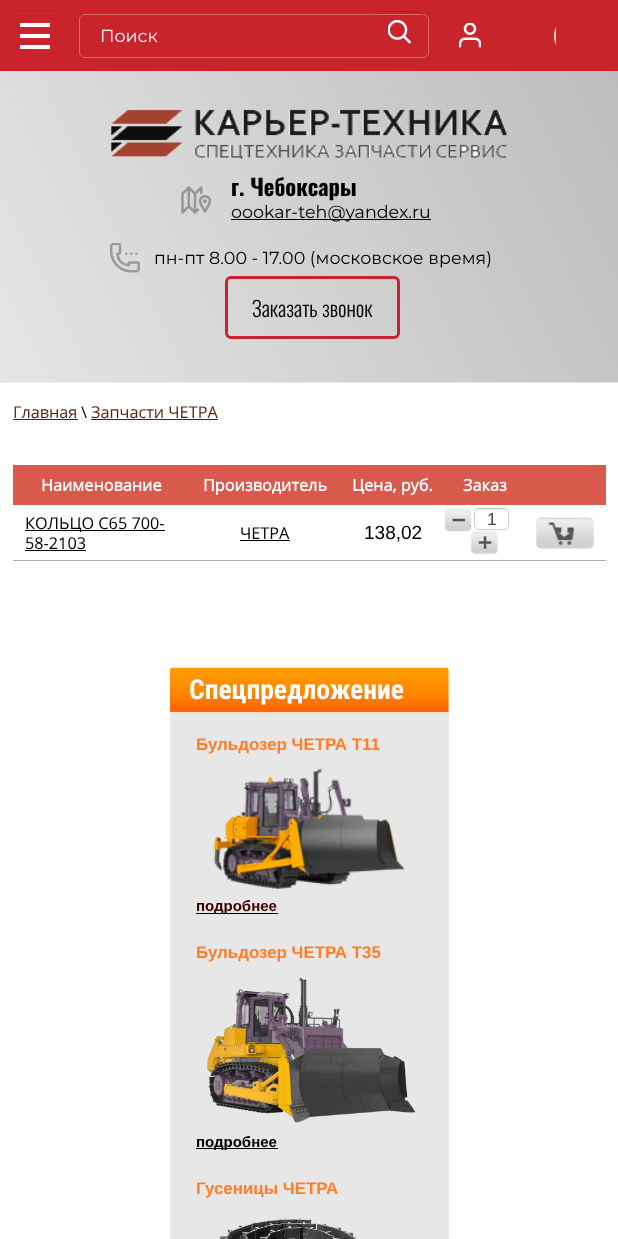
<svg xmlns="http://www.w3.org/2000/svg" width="618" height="1239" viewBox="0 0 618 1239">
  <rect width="100%" height="100%" fill="#ffffff"/>
  <image x="0" y="71" width="618" height="312" href="img1.png"/>
  <rect x="0" y="0" width="618" height="71" fill="#c9242b"/>
  <path d="M15 11H55C58 11 60 13 60 16C60 9 54 10 48 10H22C16 10 10 9 10 16C10 13 12 11 15 11Z" fill="#b52027"/>
  <rect x="20" y="23" width="30" height="4" fill="#ffffff"/>
  <rect x="20" y="45" width="30" height="4" fill="#ffffff"/>
  <rect x="20" y="34" width="30" height="4" fill="#ffffff"/>
  <rect x="79.5" y="14.5" width="349" height="43" rx="5.5" fill="none" stroke="#d9666b"/>
  <text x="100" y="42" font-family="Montserrat" font-size="17.5" fill="#ffffff">Поиск</text>
  <path d="M380 12L420 13C422 13 424 15 424 18C424 10 419 11 412 11H386C380 11 375 10 375 18C375 14 377 12 380 12ZM375 50V44Z" fill="#b52027" fill-rule="evenodd"/>
  <image x="388" y="20" width="23" height="24" href="img2.png"/>
  <image x="459" y="23" width="22" height="25" href="img3.png"/>
  <circle cx="576" cy="36" r="22" fill="#f9eec6"/>
  <rect x="556" y="14" width="42" height="44" fill="#c9242b"/>
  <image x="111" y="109" width="397" height="50" href="img4.png"/>
  <image x="181" y="186" width="30" height="28" href="img5.png"/>
  <text x="231" y="196" font-family="Oswald" font-size="22.5" font-weight="bold" fill="#000000">г. Чебоксары</text>
  <rect x="231" y="219" width="200" height="1" fill="#000000"/>
  <text x="231" y="218" font-family="Montserrat" font-size="17.5" fill="#000000">oookar-teh@yandex.ru</text>
  <image x="110" y="243" width="30" height="30" href="img6.png"/>
  <text x="154" y="264" font-family="Montserrat" font-size="17.5" fill="#000000">пн-пт 8.00 - 17.00 (московское время)</text>
  <rect x="226.5" y="277.5" width="172" height="60" rx="4.5" fill="none" stroke="#c9242b" stroke-width="3"/>
  <text x="252" y="317" font-family="Oswald" font-size="21.25" font-weight="300" fill="#000000">Заказать звонок</text>
  <text x="13" y="418" font-family="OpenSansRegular" font-size="16.25" fill="#581e10">Главная</text>
  <rect x="13" y="419" width="65" height="1" fill="#581e10"/>
  <text x="81" y="418" font-family="OpenSansRegular" font-size="16.25" fill="#000000">\</text>
  <text x="91" y="418" font-family="OpenSansRegular" font-size="16.25" fill="#581e10">Запчасти ЧЕТРА</text>
  <rect x="91" y="419" width="127" height="1" fill="#581e10"/>
  <rect x="13" y="465" width="593" height="40" fill="#d85a4d"/>
  <text x="41" y="491" font-family="OpenSansRegular" font-size="16.25" font-weight="bold" fill="#ffffff">Наименование</text>
  <text x="203" y="491" font-family="OpenSansRegular" font-size="16.25" font-weight="bold" fill="#ffffff">Производитель</text>
  <text x="352" y="491" font-family="OpenSansRegular" font-size="16.25" font-weight="bold" fill="#ffffff">Цена, руб.</text>
  <text x="463" y="491" font-family="OpenSansRegular" font-size="16.25" font-weight="bold" fill="#ffffff">Заказ</text>
  <rect x="13" y="560" width="593" height="1" fill="#afafaf"/>
  <rect x="25" y="530" width="140" height="1" fill="#000000"/>
  <text x="25" y="529" font-family="OpenSansRegular" font-size="16.25" fill="#000000">КОЛЬЦО С65 700-</text>
  <text x="25" y="549" font-family="OpenSansRegular" font-size="16.25" fill="#000000">58-2103</text>
  <rect x="25" y="550" width="61" height="1" fill="#000000"/>
  <text x="240" y="539" font-family="OpenSansRegular" font-size="16.25" fill="#000000">ЧЕТРА</text>
  <rect x="240" y="540" width="50" height="1" fill="#000000"/>
  <text x="364" y="539" font-family="Liberation Sans" font-size="19" fill="#000000">138,02</text>
  <image x="445" y="508" width="27" height="24" href="img7.png"/>
  <path d="M479 510H504C506 510 508 512 508 514C508 508.5 504.5 509 500 509H483C478.5 509 475 508.5 475 514C475 512 477 510 479 510Z" fill="#e6e6e6"/>
  <rect x="474.5" y="508.5" width="34" height="21" rx="4.5" fill="none" stroke="#cccccc"/>
  <text x="487" y="525" font-family="Liberation Sans" font-size="17.5" fill="#484848">1</text>
  <image x="471" y="531" width="27" height="23" href="img8.png"/>
  <image x="536" y="517" width="58" height="32" href="img9.png"/>
  <path d="M541 519H589C592 519 594 521 594 524C594 516 587 518 581 518H549C543 518 536 516 536 524C536 521 538 519 541 519Z" fill="#000000" fill-opacity="0.1"/>
  <image x="170" y="667" width="279" height="46" href="img10.png"/>
  <text x="189" y="699" font-family="Roboto Condensed" font-size="27.5" font-weight="bold" fill="#ffffff">Спецпредложение</text>
  <rect x="171" y="713" width="277" height="526" fill="#e7e7e7"/>
  <path d="M449 712V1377L447 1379V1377L448 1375V712Z" fill="#ebebeb"/>
  <path d="M170 712V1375L171 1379L172 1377L171 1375V712Z" fill="#ebebeb"/>
  <text x="196" y="750" font-family="Liberation Sans" font-size="16.9" font-weight="bold" fill="#ff7e28">Бульдозер ЧЕТРА Т11</text>
  <image x="213" y="768" width="192" height="121" href="img11.png"/>
  <rect x="196" y="913" width="82" height="1" fill="#000000"/>
  <text x="196" y="911" font-family="Liberation Sans" font-size="15" font-weight="bold" fill="#3d0000">подробнее</text>
  <text x="196" y="958" font-family="Liberation Sans" font-size="16.9" font-weight="bold" fill="#ff7e28">Бульдозер ЧЕТРА Т35</text>
  <image x="207" y="977" width="209" height="146" href="img12.png"/>
  <rect x="196" y="1148" width="82" height="1" fill="#000000"/>
  <text x="196" y="1147" font-family="Liberation Sans" font-size="15" font-weight="bold" fill="#000000">подробнее</text>
  <text x="196" y="1194" font-family="Liberation Sans" font-size="16.9" font-weight="bold" fill="#ff7e28">Гусеницы ЧЕТРА</text>
  <image x="220" y="1218" width="137" height="21" href="img13.png"/>
</svg>
